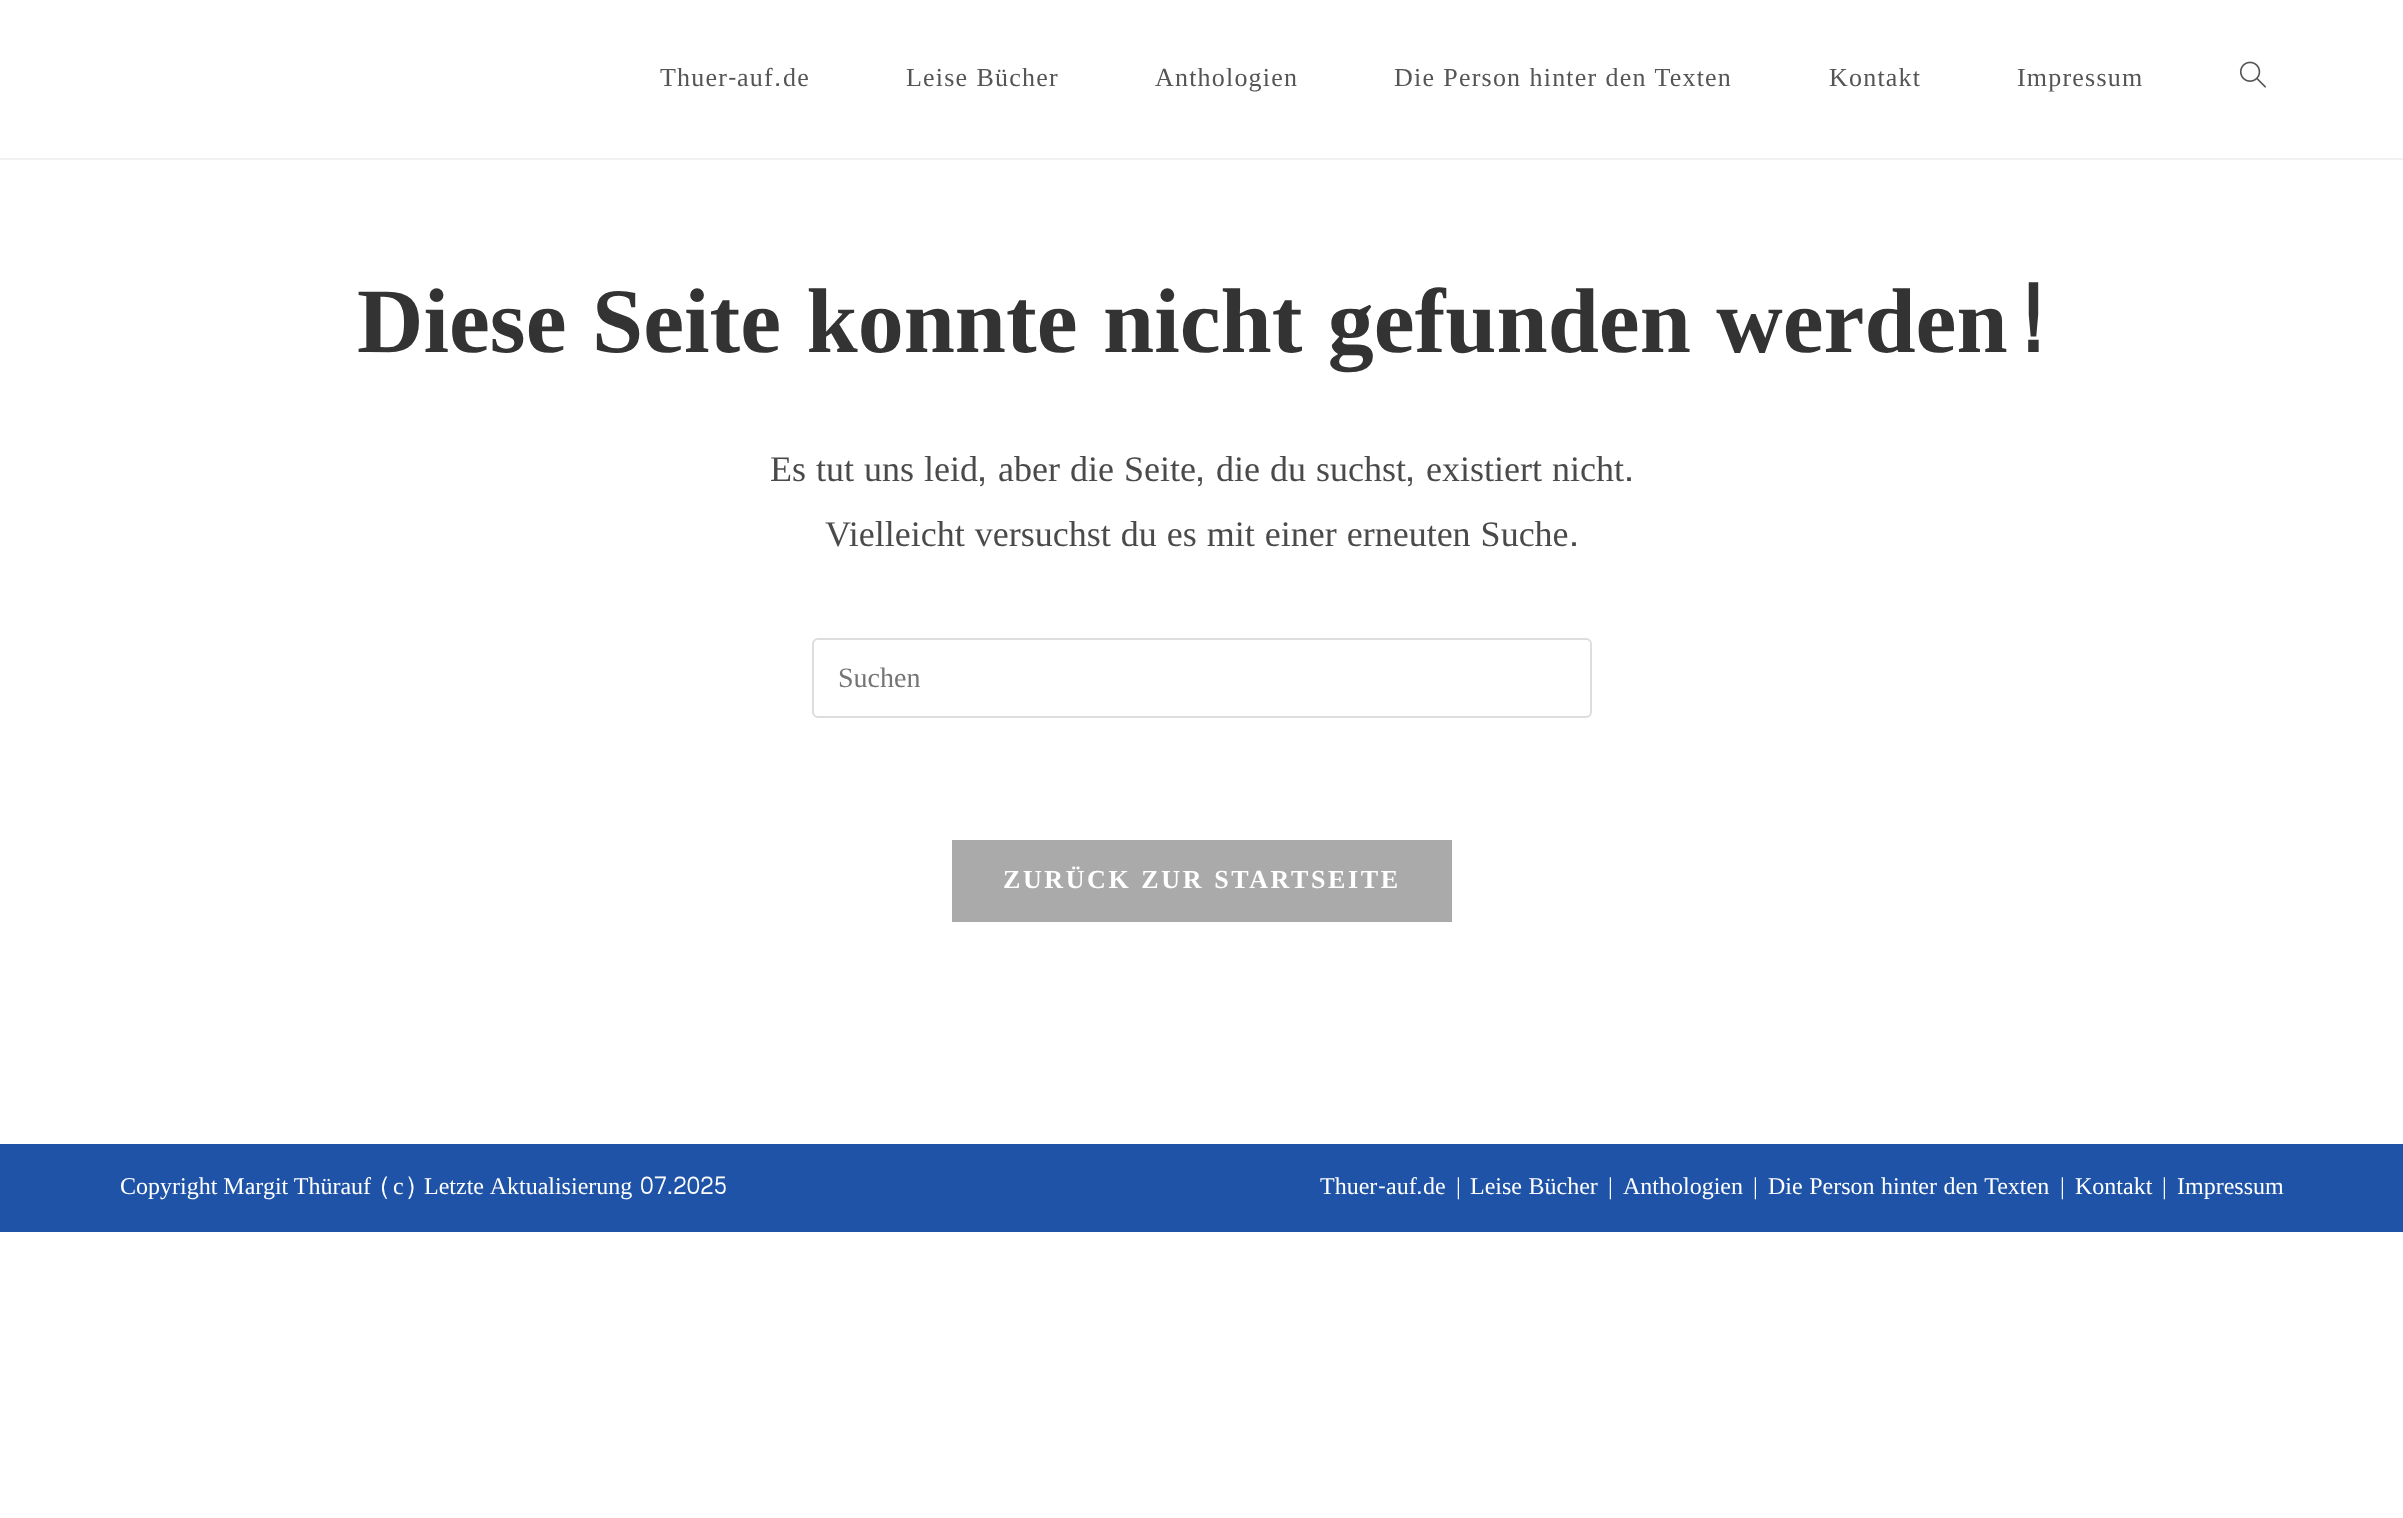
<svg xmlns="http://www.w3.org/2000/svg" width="2403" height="1518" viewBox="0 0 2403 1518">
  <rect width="100%" height="100%" fill="#ffffff"/>
  <rect x="0" y="158" width="2403" height="2" fill="#f1f1f1"/>
  <text x="660" y="86" font-family="Liberation Serif" font-size="26" letter-spacing="1.2" fill="#555555">Thuer</text>
  <text x="728" y="86" font-family="Chenla" font-size="26" letter-spacing="1.2" fill="#555555">-</text>
  <text x="737" y="86" font-family="Liberation Serif" font-size="26" letter-spacing="1.2" fill="#555555">auf</text>
  <text x="783" y="86" font-family="Liberation Serif" font-size="26" letter-spacing="1.2" fill="#555555">de</text>
  <text x="774" y="86" font-family="Chenla" font-size="26" letter-spacing="1.2" fill="#555555">.</text>
  <text x="906" y="86" word-spacing="0.5" font-family="Liberation Serif" font-size="26" letter-spacing="1.2" fill="#555555">Leise Bücher</text>
  <text x="1155" y="86" font-family="Liberation Serif" font-size="26" letter-spacing="1.2" fill="#555555">Anthologien</text>
  <text x="1394" y="86" word-spacing="0.5" font-family="Liberation Serif" font-size="26" letter-spacing="1.2" fill="#555555">Die Person hinter den Texten</text>
  <text x="1829" y="86" font-family="Liberation Serif" font-size="26" letter-spacing="1.2" fill="#555555">Kontakt</text>
  <text x="2017" y="86" font-family="Liberation Serif" font-size="26" letter-spacing="1.2" fill="#555555">Impressum</text>
  <image x="2239" y="61" width="27" height="27" href="img1.png"/>
  <text x="357" y="352" word-spacing="2.5" font-family="Liberation Serif" font-size="92" font-weight="bold" fill="#333333">Diese Seite konnte nicht gefunden werden</text>
  <text x="2008" y="352" font-family="Chenla" font-size="92" font-weight="bold" fill="#333333">!</text>
  <text x="770" y="481" word-spacing="1" font-family="Liberation Serif" font-size="36" fill="#4a4a4a">Es tut uns leid</text>
  <text x="977" y="481" font-family="Chenla" font-size="36" fill="#4a4a4a">,</text>
  <text x="998" y="481" word-spacing="1" font-family="Liberation Serif" font-size="36" fill="#4a4a4a">aber die Seite</text>
  <text x="1195" y="481" font-family="Chenla" font-size="36" fill="#4a4a4a">,</text>
  <text x="1216" y="481" word-spacing="1" font-family="Liberation Serif" font-size="36" fill="#4a4a4a">die du suchst</text>
  <text x="1405" y="481" font-family="Chenla" font-size="36" fill="#4a4a4a">,</text>
  <text x="1426" y="481" word-spacing="1" font-family="Liberation Serif" font-size="36" fill="#4a4a4a">existiert nicht</text>
  <text x="1624" y="481" font-family="Chenla" font-size="36" fill="#4a4a4a">.</text>
  <text x="825" y="546" word-spacing="1" font-family="Liberation Serif" font-size="36" fill="#4a4a4a">Vielleicht versuchst du es mit einer erneuten Suche</text>
  <text x="1569" y="546" font-family="Chenla" font-size="36" fill="#4a4a4a">.</text>
  <rect x="813" y="639" width="778" height="78" rx="5" fill="none" stroke="#dddddd" stroke-width="2"/>
  <text x="838" y="687" font-family="Liberation Serif" font-size="28" fill="#757575">Suchen</text>
  <rect x="952" y="840" width="500" height="82" fill="#aaaaaa"/>
  <text x="1003" y="888" word-spacing="1" font-family="Liberation Serif" font-size="26" font-weight="bold" letter-spacing="2.6" fill="#ffffff">ZURÜCK ZUR STARTSEITE</text>
  <rect x="0" y="1144" width="2403" height="88" fill="#1e53a8"/>
  <text x="120" y="1194" font-family="Liberation Serif" font-size="24" fill="#ffffff">Copyright Margit Thürauf</text>
  <text x="379" y="1194" font-family="Chenla" font-size="24" fill="#ffffff">(</text>
  <text x="393" y="1194" font-family="Liberation Serif" font-size="24" fill="#ffffff">c</text>
  <text x="403" y="1194" font-family="Chenla" font-size="24" fill="#ffffff">)</text>
  <text x="424" y="1194" word-spacing="1" font-family="Liberation Serif" font-size="24" fill="#ffffff">Letzte Aktualisierung</text>
  <text x="640" y="1194" font-family="Chenla" font-size="24" fill="#ffffff">07.2025</text>
  <text x="1320" y="1194" font-family="Liberation Serif" font-size="24" fill="#ffffff">Thuer</text>
  <text x="1378" y="1194" font-family="Chenla" font-size="24" fill="#ffffff">-</text>
  <text x="1386" y="1194" font-family="Liberation Serif" font-size="24" fill="#ffffff">auf</text>
  <text x="1423" y="1194" font-family="Liberation Serif" font-size="24" fill="#ffffff">de</text>
  <text x="1456" y="1194" font-family="Liberation Serif" font-size="24" fill="#ffffff">|</text>
  <text x="1416" y="1194" font-family="Chenla" font-size="24" fill="#ffffff">.</text>
  <text x="1470" y="1194" word-spacing="0.5" font-family="Liberation Serif" font-size="24" fill="#ffffff">Leise Bücher</text>
  <text x="1608" y="1194" font-family="Liberation Serif" font-size="24" fill="#ffffff">|</text>
  <text x="1623" y="1194" font-family="Liberation Serif" font-size="24" fill="#ffffff">Anthologien</text>
  <text x="1753" y="1194" font-family="Liberation Serif" font-size="24" fill="#ffffff">|</text>
  <text x="1768" y="1194" word-spacing="0.5" font-family="Liberation Serif" font-size="24" fill="#ffffff">Die Person hinter den Texten</text>
  <text x="2060" y="1194" font-family="Liberation Serif" font-size="24" fill="#ffffff">|</text>
  <text x="2075" y="1194" font-family="Liberation Serif" font-size="24" fill="#ffffff">Kontakt</text>
  <text x="2162" y="1194" font-family="Liberation Serif" font-size="24" fill="#ffffff">|</text>
  <text x="2177" y="1194" font-family="Liberation Serif" font-size="24" fill="#ffffff">Impressum</text>
</svg>
